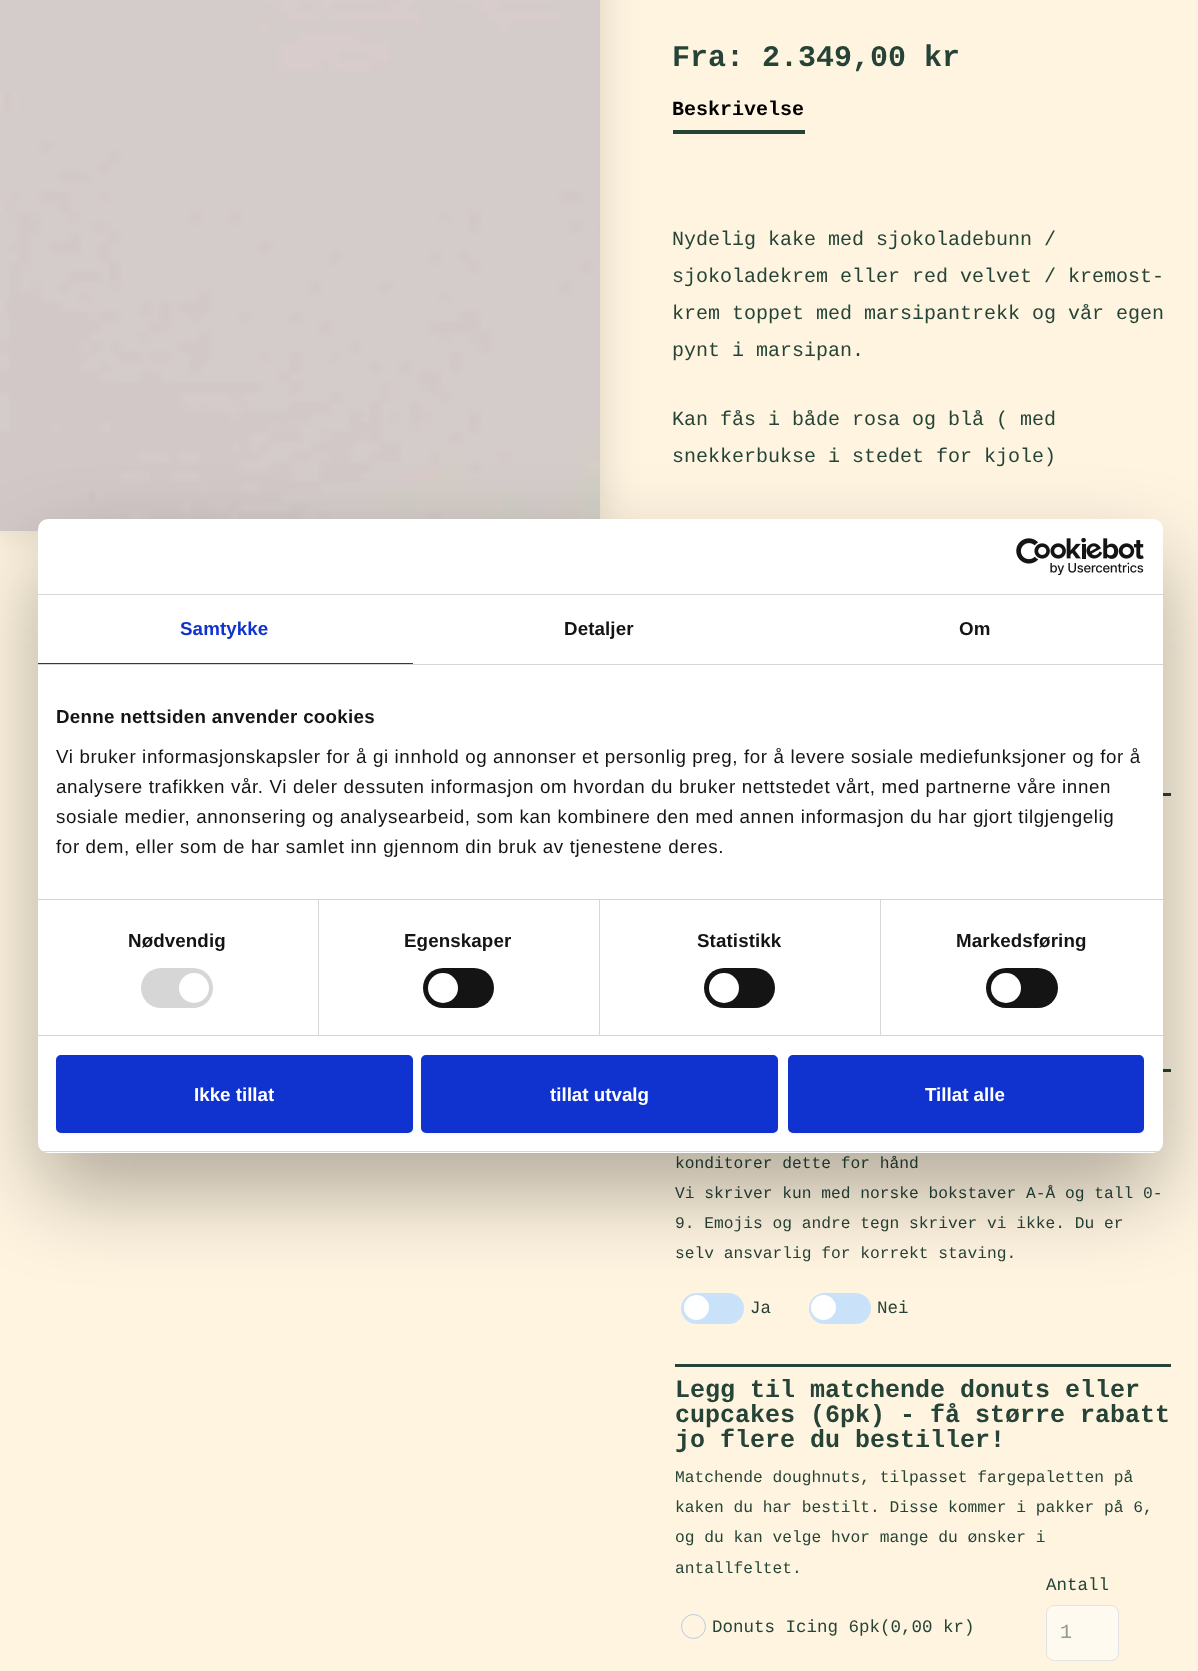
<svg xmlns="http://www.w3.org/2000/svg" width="1198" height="1671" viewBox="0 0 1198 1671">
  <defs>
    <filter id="blur1" x="-50%" y="-200%" width="200%" height="500%"><feGaussianBlur stdDeviation="19"/></filter>
    <filter id="blur2" x="-50%" y="-200%" width="200%" height="500%"><feGaussianBlur stdDeviation="42.5"/></filter>
    <clipPath id="clip1"><rect x="38" y="519" width="1125" height="634" rx="10"/></clipPath>
    <filter id="blur3" x="-50%" y="-200%" width="200%" height="500%"><feGaussianBlur stdDeviation="1"/></filter>
  </defs>
  <rect width="100%" height="100%" fill="#fff4e0"/>
  <rect x="0" y="-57" width="600" height="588" fill="#000000" fill-opacity="0.15" filter="url(#blur1)"/>
  <image x="0" y="0" width="600" height="531" href="img1.png"/>
  <text x="672" y="66" font-family="Liberation Mono" font-size="30" font-weight="bold" fill="#254337">Fra: 2.349,00 kr</text>
  <rect x="673" y="130" width="132" height="4" fill="#254337"/>
  <text x="672" y="115" font-family="Liberation Mono" font-size="20" font-weight="bold" fill="#000000">Beskrivelse</text>
  <text x="672" y="245" font-family="Liberation Mono" font-size="20" fill="#254337">Nydelig kake med sjokoladebunn /</text>
  <text x="672" y="282" font-family="Liberation Mono" font-size="20" fill="#254337">sjokoladekrem eller red velvet / kremost-</text>
  <text x="672" y="319" font-family="Liberation Mono" font-size="20" fill="#254337">krem toppet med marsipantrekk og vår egen</text>
  <text x="672" y="356" font-family="Liberation Mono" font-size="20" fill="#254337">pynt i marsipan.</text>
  <text x="672" y="425" font-family="Liberation Mono" font-size="20" fill="#254337">Kan fås i både rosa og blå ( med</text>
  <text x="672" y="462" font-family="Liberation Mono" font-size="20" fill="#254337">snekkerbukse i stedet for kjole)</text>
  <rect x="1163" y="793" width="8" height="3" fill="#254337"/>
  <rect x="1163" y="1069" width="8" height="3" fill="#254337"/>
  <text x="675" y="1168" font-family="Liberation Mono" font-size="16.25" fill="#254337">konditorer dette for hånd</text>
  <text x="675" y="1198" font-family="Liberation Mono" font-size="16.25" fill="#254337">Vi skriver kun med norske bokstaver A-Å og tall 0-</text>
  <text x="675" y="1228" font-family="Liberation Mono" font-size="16.25" fill="#254337">9. Emojis og andre tegn skriver vi ikke. Du er</text>
  <text x="675" y="1258" font-family="Liberation Mono" font-size="16.25" fill="#254337">selv ansvarlig for korrekt staving.</text>
  <rect x="681" y="1293" width="63" height="31" rx="15.5" fill="#cae2f9"/>
  <circle cx="696.5" cy="1307.5" r="12.5" fill="#ffffff"/>
  <text x="750" y="1313" font-family="Liberation Mono" font-size="17.5" fill="#254337">Ja</text>
  <rect x="809" y="1293" width="62" height="31" rx="15.5" fill="#cae2f9"/>
  <circle cx="823.5" cy="1307.5" r="12.5" fill="#ffffff"/>
  <text x="877" y="1313" font-family="Liberation Mono" font-size="17.5" fill="#254337">Nei</text>
  <rect x="675" y="1364" width="496" height="3" fill="#254337"/>
  <text x="675" y="1397" font-family="Liberation Mono" font-size="25" font-weight="bold" fill="#254337">Legg til matchende donuts eller</text>
  <text x="675" y="1422" font-family="Liberation Mono" font-size="25" font-weight="bold" fill="#254337">cupcakes (6pk) - få større rabatt</text>
  <text x="675" y="1447" font-family="Liberation Mono" font-size="25" font-weight="bold" fill="#254337">jo flere du bestiller!</text>
  <text x="675" y="1482" font-family="Liberation Mono" font-size="16.25" fill="#254337">Matchende doughnuts, tilpasset fargepaletten på</text>
  <text x="675" y="1512" font-family="Liberation Mono" font-size="16.25" fill="#254337">kaken du har bestilt. Disse kommer i pakker på 6,</text>
  <text x="675" y="1542" font-family="Liberation Mono" font-size="16.25" fill="#254337">og du kan velge hvor mange du ønsker i</text>
  <text x="675" y="1573" font-family="Liberation Mono" font-size="16.25" fill="#254337">antallfeltet.</text>
  <circle cx="693.5" cy="1626.5" r="12" fill="none" stroke="#b9cbe3"/>
  <text x="712" y="1632" font-family="Liberation Mono" font-size="17.5" fill="#254337">Donuts Icing 6pk(0,00 kr)</text>
  <text x="1046" y="1590" font-family="Liberation Mono" font-size="17.5" fill="#254337">Antall</text>
  <rect x="1046.5" y="1605.5" width="72" height="55" rx="7.5" fill="#fffaf0" stroke="#e3e2e5"/>
  <text x="1060" y="1638" font-family="Liberation Mono" font-size="20" fill="#929c8c">1</text>
  <rect x="38" y="559" width="1125" height="634" rx="10" fill="#000000" fill-opacity="0.3" filter="url(#blur2)"/>
  <rect x="38" y="519" width="1125" height="634" rx="10" fill="#ffffff"/>
  <rect x="38" y="594" width="1125" height="1" fill="#d6d6d6"/>
  <image x="1016" y="538" width="128" height="37" href="img2.png"/>
  <rect x="38" y="664" width="1125" height="1" fill="#d6d6d6"/>
  <rect x="38" y="663" width="375" height="1" fill="#1032cf"/>
  <text x="180" y="635" font-family="Liberation Sans" font-size="18.75" font-weight="bold" letter-spacing="0.1" fill="#1032cf">Samtykke</text>
  <text x="564" y="635" font-family="Liberation Sans" font-size="18.75" font-weight="bold" letter-spacing="0.1" fill="#141414">Detaljer</text>
  <text x="959" y="635" font-family="Liberation Sans" font-size="18.75" font-weight="bold" letter-spacing="0.1" fill="#141414">Om</text>
  <rect x="38" y="899" width="1125" height="1" fill="#d6d6d6"/>
  <text x="56" y="723" font-family="Liberation Sans" font-size="18.75" font-weight="bold" letter-spacing="0.3" fill="#141414">Denne nettsiden anvender cookies</text>
  <text x="56" y="763" font-family="Liberation Sans" font-size="18.75" letter-spacing="0.62" fill="#141414">Vi bruker informasjonskapsler for å gi innhold og annonser et personlig preg, for å levere sosiale mediefunksjoner og for å</text>
  <text x="56" y="793" font-family="Liberation Sans" font-size="18.75" letter-spacing="0.62" fill="#141414">analysere trafikken vår. Vi deler dessuten informasjon om hvordan du bruker nettstedet vårt, med partnerne våre innen</text>
  <text x="56" y="823" font-family="Liberation Sans" font-size="18.75" letter-spacing="0.62" fill="#141414">sosiale medier, annonsering og analysearbeid, som kan kombinere den med annen informasjon du har gjort tilgjengelig</text>
  <text x="56" y="853" font-family="Liberation Sans" font-size="18.75" letter-spacing="0.62" fill="#141414">for dem, eller som de har samlet inn gjennom din bruk av tjenestene deres.</text>
  <rect x="38" y="1035" width="1125" height="1" fill="#d6d6d6"/>
  <rect x="318" y="900" width="1" height="135" fill="#d6d6d6"/>
  <text x="128" y="947" font-family="Liberation Sans" font-size="18.75" font-weight="bold" letter-spacing="0.1" fill="#141414">Nødvendig</text>
  <rect x="141" y="968" width="72" height="40" rx="20" fill="#d6d6d6"/>
  <circle cx="194" cy="988" r="15" fill="#ffffff"/>
  <rect x="599" y="900" width="1" height="135" fill="#d6d6d6"/>
  <text x="404" y="947" font-family="Liberation Sans" font-size="18.75" font-weight="bold" letter-spacing="0.1" fill="#141414">Egenskaper</text>
  <rect x="423" y="968" width="71" height="40" rx="20" fill="#141414"/>
  <circle cx="443" cy="988" r="15" fill="#ffffff"/>
  <rect x="880" y="900" width="1" height="135" fill="#d6d6d6"/>
  <text x="697" y="947" font-family="Liberation Sans" font-size="18.75" font-weight="bold" letter-spacing="0.1" fill="#141414">Statistikk</text>
  <rect x="704" y="968" width="71" height="40" rx="20" fill="#141414"/>
  <circle cx="724" cy="988" r="15" fill="#ffffff"/>
  <text x="956" y="947" font-family="Liberation Sans" font-size="18.75" font-weight="bold" letter-spacing="0.1" fill="#141414">Markedsføring</text>
  <rect x="986" y="968" width="72" height="40" rx="20" fill="#141414"/>
  <circle cx="1006" cy="988" r="15" fill="#ffffff"/>
  <g clip-path="url(#clip1)">
    <rect x="38" y="1151" width="1125" height="1" fill="#d6d6d6"/>
  </g>
  <rect x="56" y="1056" width="357" height="78" rx="5" fill="#000000" fill-opacity="0.05" filter="url(#blur3)"/>
  <rect x="57.5" y="1056.5" width="354" height="75" rx="3.5" fill="#1032cf" stroke="#1032cf" stroke-width="3"/>
  <text x="194" y="1101" font-family="Liberation Sans" font-size="18.75" font-weight="bold" fill="#ffffff">Ikke tillat</text>
  <rect x="421" y="1056" width="357" height="78" rx="5" fill="#000000" fill-opacity="0.05" filter="url(#blur3)"/>
  <rect x="422.5" y="1056.5" width="354" height="75" rx="3.5" fill="#1032cf" stroke="#1032cf" stroke-width="3"/>
  <text x="550" y="1101" font-family="Liberation Sans" font-size="18.75" font-weight="bold" fill="#ffffff">tillat utvalg</text>
  <rect x="788" y="1056" width="356" height="78" rx="5" fill="#000000" fill-opacity="0.05" filter="url(#blur3)"/>
  <rect x="789.5" y="1056.5" width="353" height="75" rx="3.5" fill="#1032cf" stroke="#1032cf" stroke-width="3"/>
  <text x="925" y="1101" font-family="Liberation Sans" font-size="18.75" font-weight="bold" fill="#ffffff">Tillat alle</text>
</svg>
